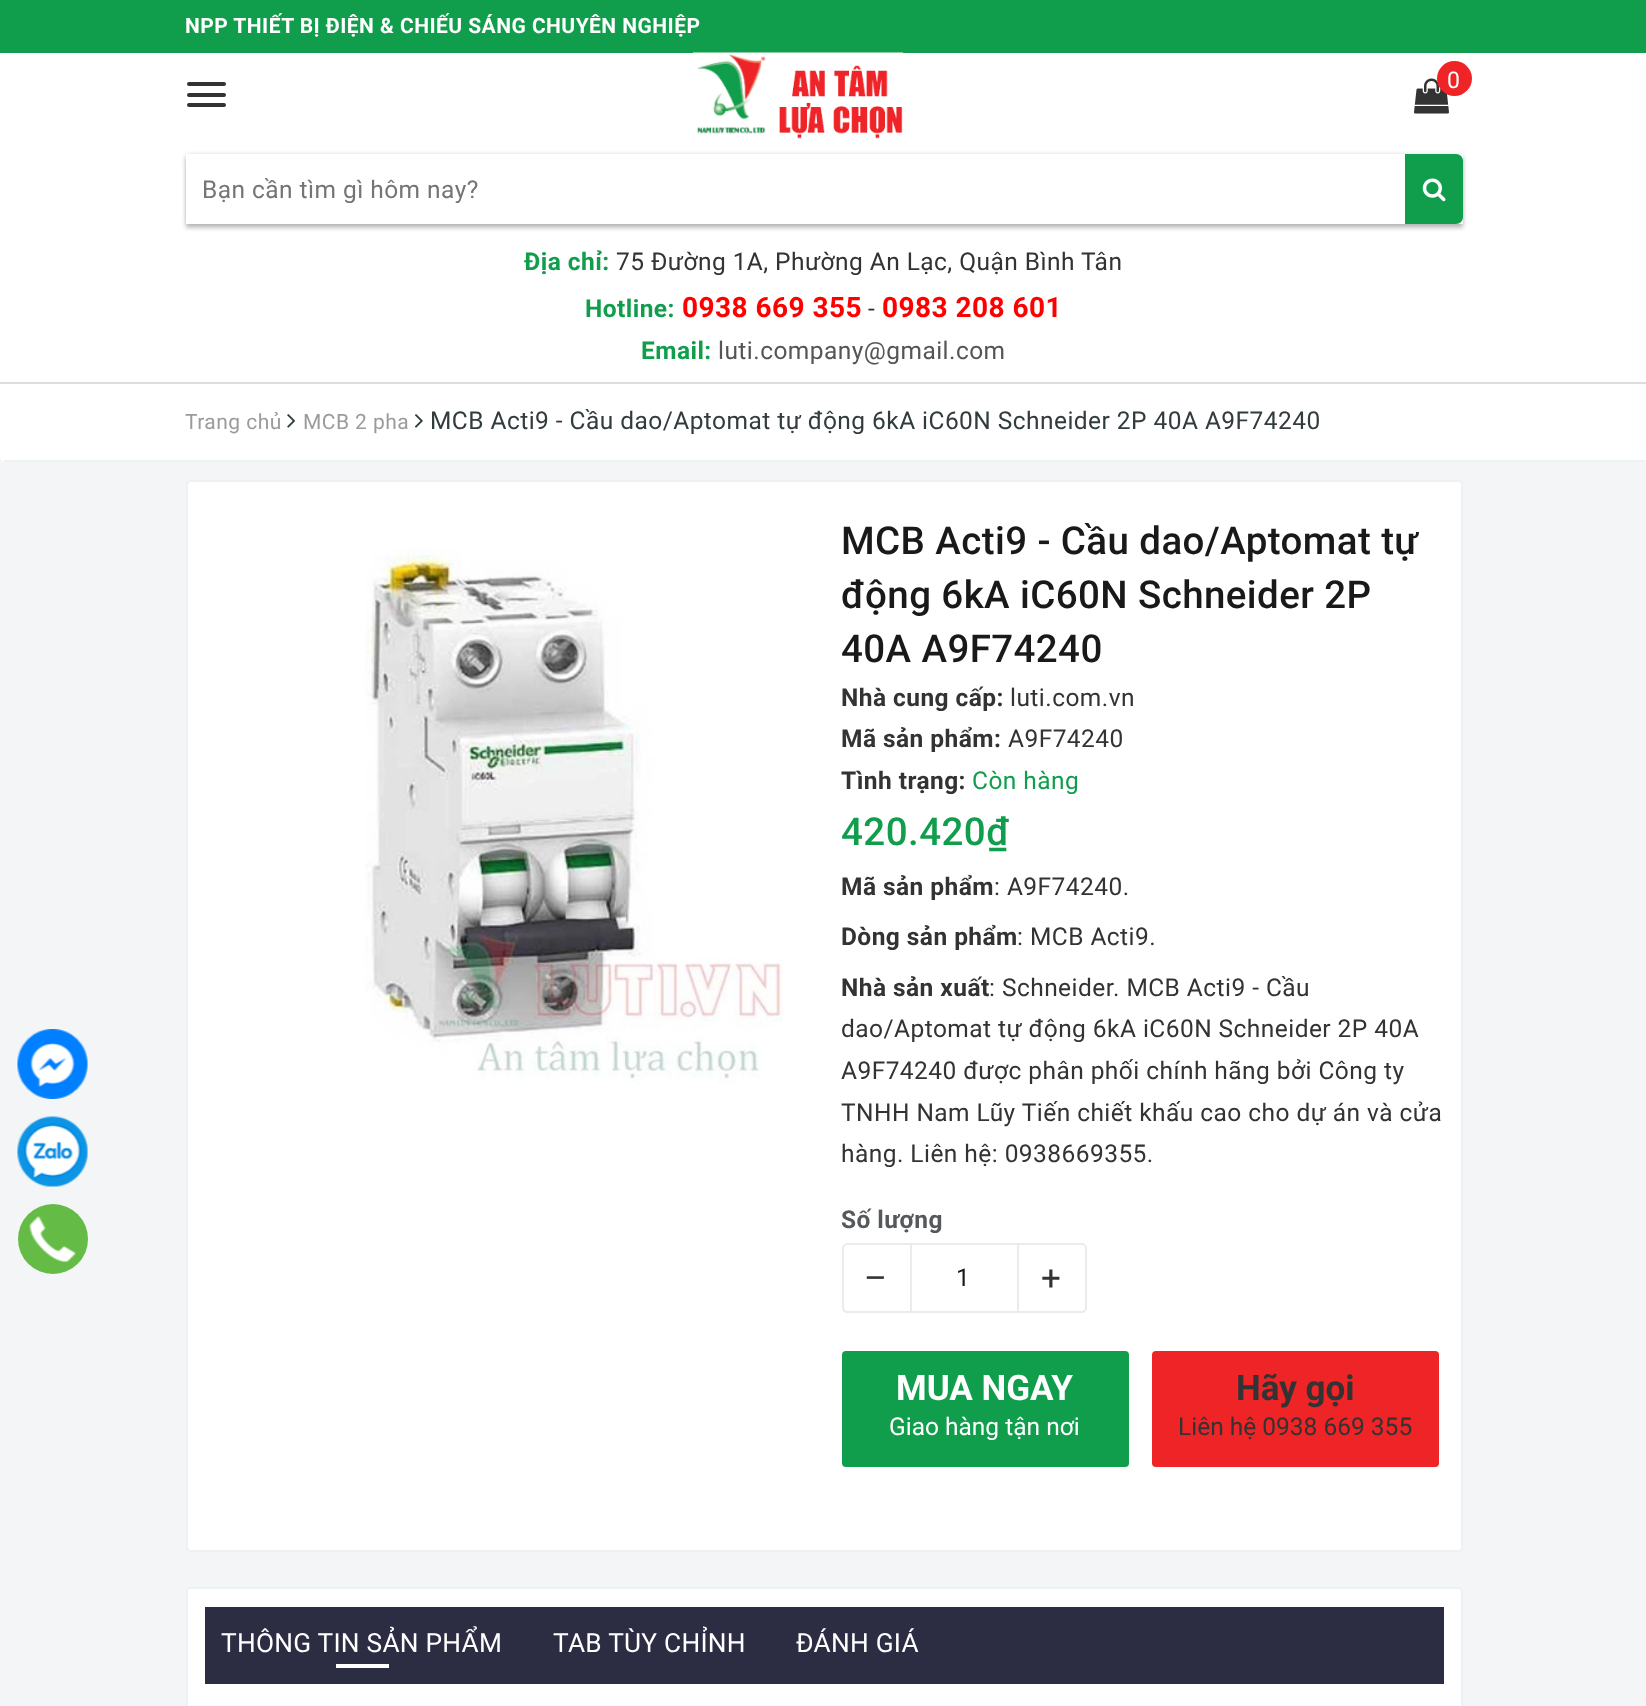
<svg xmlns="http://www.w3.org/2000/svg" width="1646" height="1706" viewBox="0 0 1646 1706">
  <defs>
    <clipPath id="clip1"><path d="M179 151H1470V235H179ZM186 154H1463V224H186Z" clip-rule="evenodd"/></clipPath>
    <filter id="blur1" x="-50%" y="-200%" width="200%" height="500%"><feGaussianBlur stdDeviation="2"/></filter>
    <clipPath id="clip2"><path d="M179 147H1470V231H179ZM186 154H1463V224H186Z" clip-rule="evenodd"/></clipPath>
    <clipPath id="clip3"><rect x="203" y="175" width="1187" height="28"/></clipPath>
  </defs>
  <rect width="100%" height="100%" fill="#f3f5f7"/>
  <rect x="0" y="53" width="1646" height="329" fill="#ffffff"/>
  <rect x="0" y="0" width="1646" height="53" fill="#109e4d"/>
  <text x="185" y="33" font-family="Roboto" font-size="21" font-weight="bold" letter-spacing="0.45" fill="#ffffff">NPP THIẾT BỊ ĐIỆN &amp; CHIẾU SÁNG CHUYÊN NGHIỆP</text>
  <image x="693" y="52" width="210" height="87" href="img1.png"/>
  <image x="1414" y="78" width="35" height="36" href="img2.png"/>
  <circle cx="1454.5" cy="78.5" r="17.5" fill="#ef2427"/>
  <text x="1447" y="88" font-family="Roboto" font-size="23" letter-spacing="0.45" fill="#ffffff">0</text>
  <rect x="187" y="82" width="39" height="4" rx="2" fill="#333333"/>
  <rect x="187" y="93" width="39" height="4" rx="2" fill="#333333"/>
  <rect x="187" y="103" width="39" height="4" rx="2" fill="#333333"/>
  <g clip-path="url(#clip1)">
    <rect x="186" y="158" width="1277" height="70" fill="#000000" fill-opacity="0.24" filter="url(#blur1)"/>
  </g>
  <g clip-path="url(#clip2)">
    <rect x="186" y="154" width="1277" height="70" fill="#000000" fill-opacity="0.12" filter="url(#blur1)"/>
  </g>
  <g clip-path="url(#clip3)">
    <text x="202" y="198" font-family="Roboto" font-size="24.5" letter-spacing="0.45" fill="#757575">Bạn cần tìm gì hôm nay?</text>
  </g>
  <path d="M1405 154H1456C1460 154 1463 157 1463 161V217C1463 221 1460 224 1456 224H1405Z" fill="#109e4d"/>
  <image x="1422" y="178" width="24" height="24" href="img3.png"/>
  <text x="524" y="270" font-family="Roboto" font-size="24.5" font-weight="bold" letter-spacing="0.45" fill="#109e4d">Địa chỉ:</text>
  <text x="616" y="270" font-family="Roboto" font-size="24.5" letter-spacing="0.45" fill="#333333">75 Đường 1A, Phường An Lạc, Quận Bình Tân</text>
  <text x="585" y="317" font-family="Roboto" font-size="24.5" font-weight="bold" letter-spacing="0.45" fill="#109e4d">Hotline:</text>
  <text x="682" y="317" font-family="Roboto" font-size="28" font-weight="bold" letter-spacing="0.45" fill="#ff0000">0938 669 355</text>
  <text x="868" y="317" font-family="Roboto" font-size="24.5" letter-spacing="0.45" fill="#333333">-</text>
  <text x="882" y="317" font-family="Roboto" font-size="28" font-weight="bold" letter-spacing="0.45" fill="#ff0000">0983 208 601</text>
  <text x="641" y="359" font-family="Roboto" font-size="24.5" font-weight="bold" letter-spacing="0.45" fill="#109e4d">Email:</text>
  <text x="718" y="359" font-family="Roboto" font-size="24.5" letter-spacing="0.45" fill="#575454">luti.company@gmail.com</text>
  <path d="M0 383H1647V457C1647 460 1645 462 1642 462H5C2 462 0 460 0 457Z" fill="#ffffff"/>
  <rect x="0" y="382" width="1646" height="2" fill="#dddddd"/>
  <rect x="4" y="460" width="1641" height="2" fill="#ecf2f4"/>
  <text x="185" y="429" font-family="Roboto" font-size="21" letter-spacing="0.45" fill="#9b9b9b">Trang chủ</text>
  <image x="287" y="414" width="9" height="14" href="img4.png"/>
  <text x="303" y="429" font-family="Roboto" font-size="21" letter-spacing="0.45" fill="#9b9b9b">MCB 2 pha</text>
  <image x="415" y="414" width="8" height="14" href="img5.png"/>
  <text x="430" y="429" font-family="Roboto" font-size="24.5" letter-spacing="0.45" fill="#323c3f">MCB Acti9 - Cầu dao/Aptomat tự động 6kA iC60N Schneider 2P 40A A9F74240</text>
  <image x="17" y="1029" width="71" height="70" href="img6.png"/>
  <image x="17" y="1116" width="71" height="71" href="img7.png"/>
  <circle cx="53" cy="1239" r="35" fill="#64bc46"/>
  <image x="29" y="1216" width="47" height="46" href="img8.png"/>
  <rect x="187" y="481" width="1275" height="1070" rx="4" fill="#ffffff" stroke="#ecf2f4" stroke-width="2"/>
  <image x="365" y="549" width="418" height="535" href="img9.png"/>
  <text x="841" y="554" font-family="Roboto" font-size="38.5" font-weight="500" letter-spacing="0.4" fill="#191919">MCB Acti9 - Cầu dao/Aptomat tự</text>
  <text x="841" y="608" font-family="Roboto" font-size="38.5" font-weight="500" letter-spacing="0.4" fill="#191919">động 6kA iC60N Schneider 2P</text>
  <text x="841" y="662" font-family="Roboto" font-size="38.5" font-weight="500" letter-spacing="0.4" fill="#191919">40A A9F74240</text>
  <text x="841" y="706" font-family="Roboto" font-size="24.5" font-weight="bold" letter-spacing="0.45" fill="#333333">Nhà cung cấp:</text>
  <text x="1010" y="706" font-family="Roboto" font-size="24.5" letter-spacing="0.45" fill="#333333">luti.com.vn</text>
  <text x="841" y="747" font-family="Roboto" font-size="24.5" font-weight="bold" letter-spacing="0.45" fill="#333333">Mã sản phẩm:</text>
  <text x="1008" y="747" font-family="Roboto" font-size="24.5" letter-spacing="0.45" fill="#333333">A9F74240</text>
  <text x="841" y="789" font-family="Roboto" font-size="24.5" font-weight="bold" letter-spacing="0.45" fill="#333333">Tình trạng:</text>
  <text x="972" y="789" font-family="Roboto" font-size="24.5" letter-spacing="0.45" fill="#109e4d">Còn hàng</text>
  <text x="841" y="845" font-family="Roboto" font-size="38.5" font-weight="500" letter-spacing="0.45" fill="#109e4d">420.420₫</text>
  <text x="841" y="895" font-family="Roboto" font-size="24.5" font-weight="bold" letter-spacing="0.45" fill="#333333">Mã sản phẩm</text>
  <text x="994" y="895" font-family="Roboto" font-size="24.5" letter-spacing="0.45" fill="#333333">: A9F74240.</text>
  <text x="841" y="945" font-family="Roboto" font-size="24.5" font-weight="bold" letter-spacing="0.45" fill="#333333">Dòng sản phẩm</text>
  <text x="1017" y="945" font-family="Roboto" font-size="24.5" letter-spacing="0.45" fill="#333333">: MCB Acti9.</text>
  <text x="841" y="996" font-family="Roboto" font-size="24.5" font-weight="bold" letter-spacing="0.45" fill="#333333">Nhà sản xuất</text>
  <text x="989" y="996" font-family="Roboto" font-size="24.5" letter-spacing="0.45" fill="#333333">: Schneider. MCB Acti9 - Cầu</text>
  <text x="841" y="1037" font-family="Roboto" font-size="24.5" letter-spacing="0.45" fill="#333333">dao/Aptomat tự động 6kA iC60N Schneider 2P 40A</text>
  <text x="841" y="1079" font-family="Roboto" font-size="24.5" letter-spacing="0.45" fill="#333333">A9F74240 được phân phối chính hãng bởi Công ty</text>
  <text x="841" y="1121" font-family="Roboto" font-size="24.5" letter-spacing="0.45" fill="#333333">TNHH Nam Lũy Tiến chiết khấu cao cho dự án và cửa</text>
  <text x="841" y="1162" font-family="Roboto" font-size="24.5" letter-spacing="0.45" fill="#333333">hàng. Liên hệ: 0938669355.</text>
  <text x="841" y="1228" font-family="Roboto" font-size="24.5" font-weight="bold" letter-spacing="0.45" fill="#55595c">Số lượng</text>
  <path d="M847 1244H911V1312H847C845 1312 843 1310 843 1308V1248C843 1246 845 1244 847 1244Z" fill="none" stroke="#ebebeb" stroke-width="2"/>
  <text x="864" y="1290" font-family="Roboto" font-size="35" letter-spacing="0.45" fill="#333333">–</text>
  <rect x="912" y="1243" width="105" height="2" fill="#ebebeb"/>
  <rect x="912" y="1311" width="105" height="2" fill="#ebebeb"/>
  <text x="956" y="1286" font-family="Roboto" font-size="24.5" letter-spacing="0.45" fill="#191919">1</text>
  <path d="M1018 1244H1082C1084 1244 1086 1246 1086 1248V1308C1086 1310 1084 1312 1082 1312H1018Z" fill="none" stroke="#ebebeb" stroke-width="2"/>
  <text x="1041" y="1290" font-family="Roboto" font-size="35" letter-spacing="0.45" fill="#333333">+</text>
  <rect x="842" y="1351" width="287" height="116" rx="4" fill="#109e4d"/>
  <text x="896" y="1400" font-family="Roboto" font-size="35" font-weight="bold" fill="#ffffff">MUA NGAY</text>
  <text x="889" y="1435" font-family="Roboto" font-size="24.5" fill="#ffffff">Giao hàng tận nơi</text>
  <rect x="1152" y="1351" width="287" height="116" rx="4" fill="#ef2427"/>
  <text x="1236" y="1400" font-family="Roboto" font-size="35" font-weight="bold" fill="#333333">Hãy gọi</text>
  <text x="1178" y="1435" font-family="Roboto" font-size="24.5" fill="#333333">Liên hệ 0938 669 355</text>
  <rect x="187" y="1588" width="1275" height="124" rx="4" fill="#ffffff" stroke="#ecf2f4" stroke-width="2"/>
  <rect x="205" y="1607" width="1239" height="77" fill="#2c2c43"/>
  <text x="221" y="1652" font-family="Roboto" font-size="26.25" letter-spacing="0.25" fill="#ffffff">THÔNG TIN SẢN PHẨM</text>
  <rect x="336" y="1664" width="53" height="4" fill="#ffffff"/>
  <text x="553" y="1652" font-family="Roboto" font-size="26.25" letter-spacing="0.25" fill="#ffffff">TAB TÙY CHỈNH</text>
  <text x="796" y="1652" font-family="Roboto" font-size="26.25" letter-spacing="0.25" fill="#ffffff">ĐÁNH GIÁ</text>
</svg>
